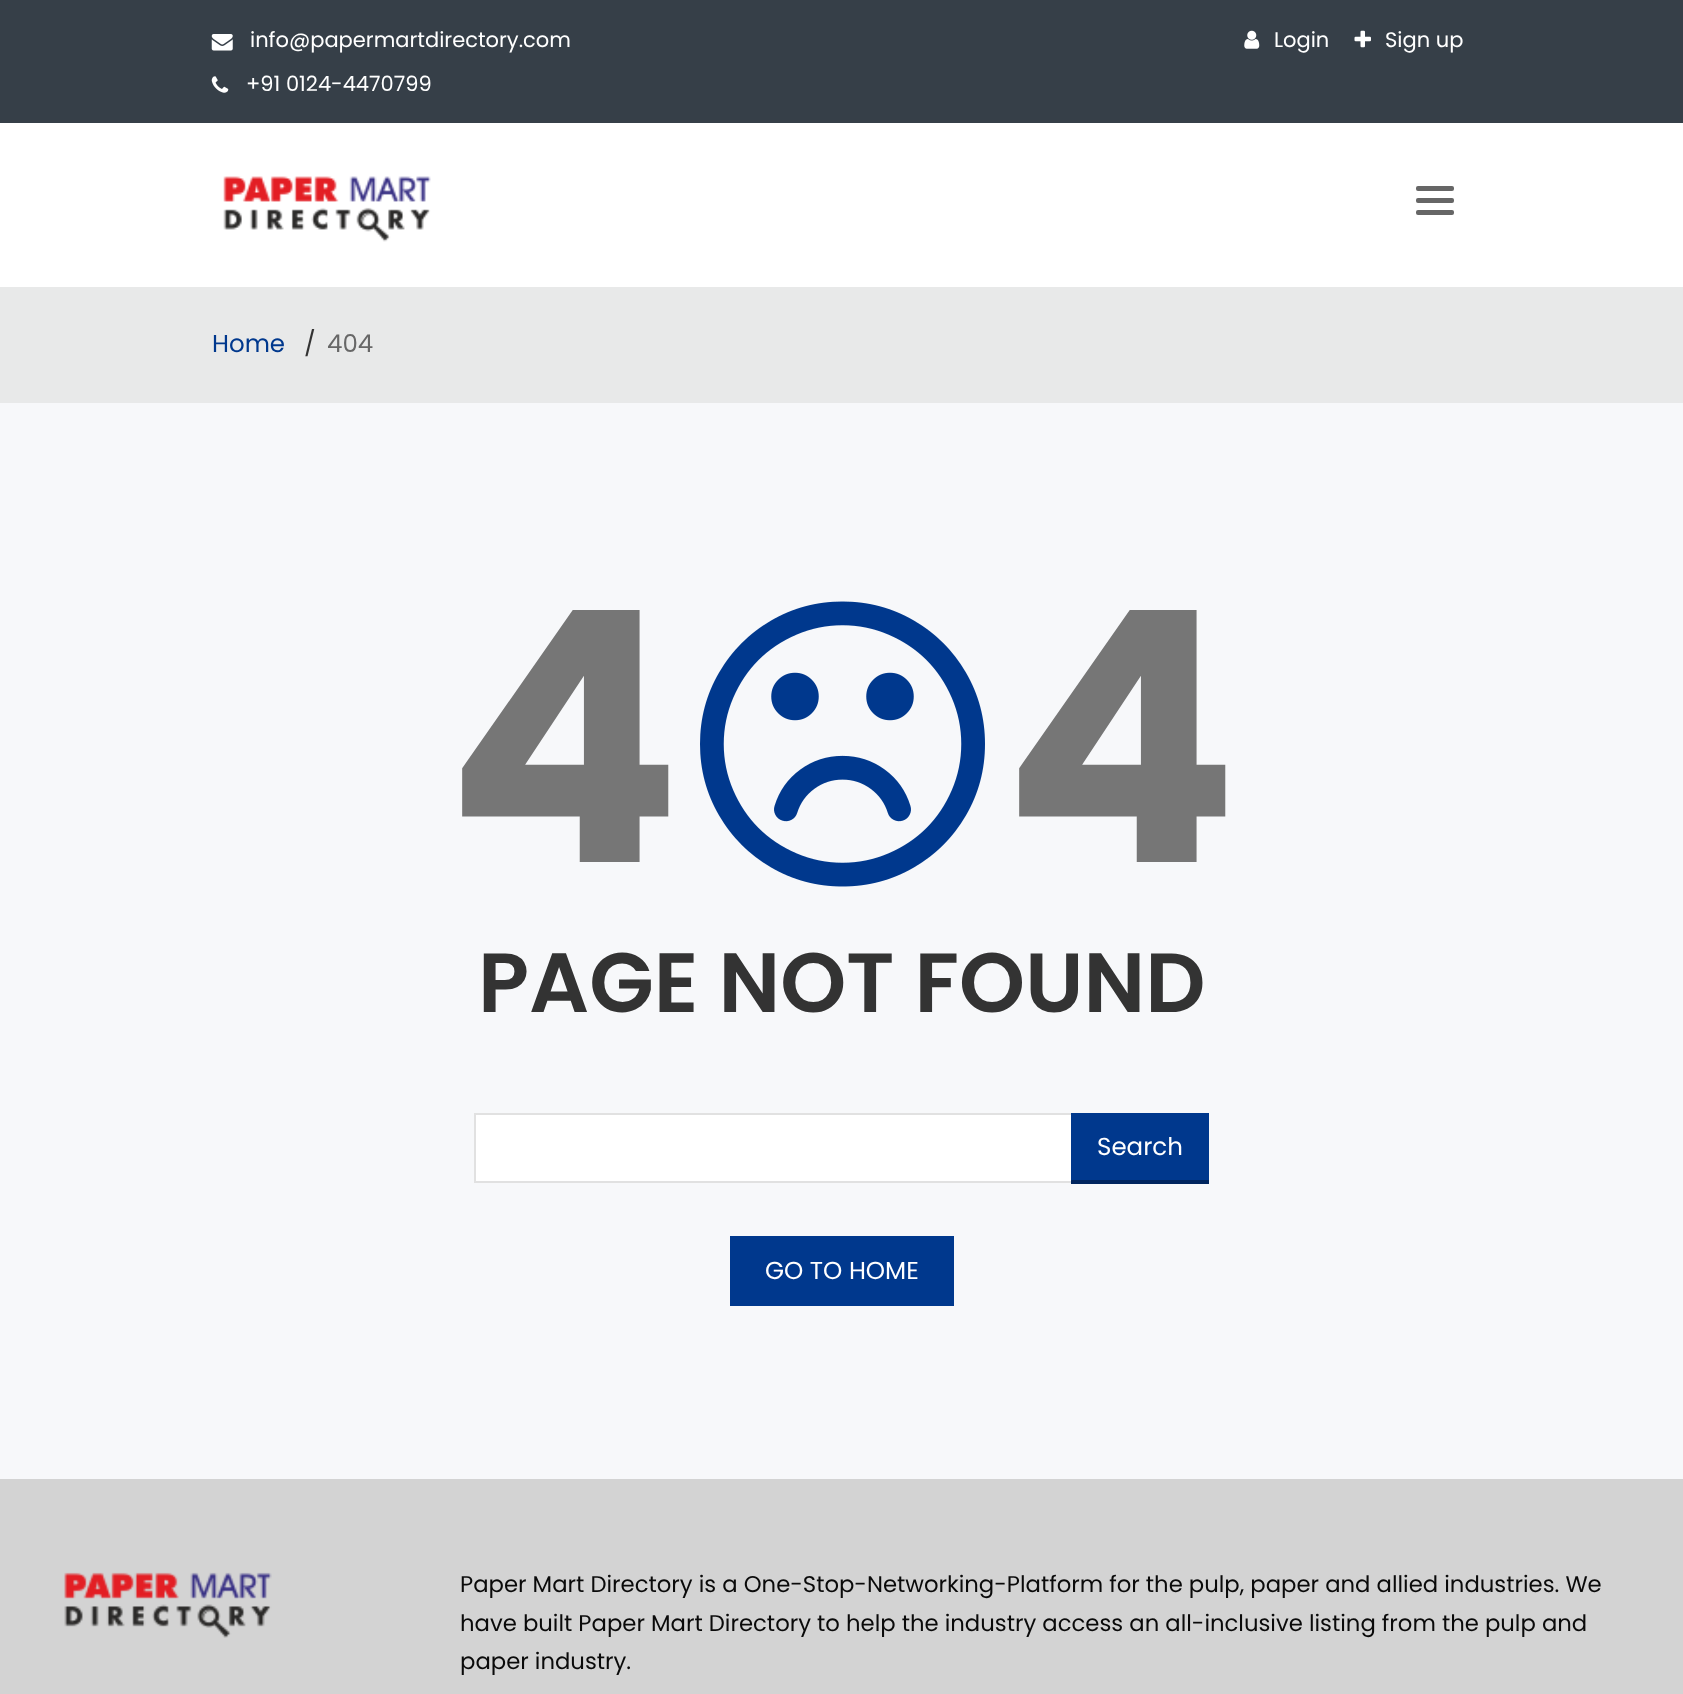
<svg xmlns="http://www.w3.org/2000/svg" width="1683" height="1694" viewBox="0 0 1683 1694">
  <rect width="100%" height="100%" fill="#f7f8fa"/>
  <rect x="0" y="123" width="1683" height="164" fill="#ffffff"/>
  <rect x="0" y="0" width="1683" height="123" fill="#363f48"/>
  <image x="211" y="34" width="22" height="17" href="img1.png"/>
  <text x="250" y="47" font-family="Poppins" font-size="21" fill="#ffffff">info@papermartdirectory.com</text>
  <image x="211" y="76" width="18" height="17" href="img2.png"/>
  <text x="246" y="91" font-family="Poppins" font-size="21" fill="#ffffff">+91 0124-4470799</text>
  <image x="1244" y="30" width="16" height="19" href="img3.png"/>
  <text x="1274" y="47" font-family="Poppins" font-size="21" fill="#ffffff">Login</text>
  <image x="1354" y="30" width="17" height="18" href="img4.png"/>
  <text x="1385" y="47" font-family="Poppins" font-size="21" fill="#ffffff">Sign up</text>
  <image x="223" y="176" width="208" height="66" href="img5.png"/>
  <rect x="1416" y="186" width="38" height="5" rx="2" fill="#666666"/>
  <rect x="1416" y="198" width="38" height="5" rx="2" fill="#666666"/>
  <rect x="1416" y="210" width="38" height="5" rx="2" fill="#666666"/>
  <rect x="0" y="287" width="1683" height="116" fill="#e8e9e9"/>
  <text x="212" y="352" font-family="Poppins" font-size="24.5" fill="#00388d">Home</text>
  <text x="304" y="352" font-family="Poppins" font-size="24.5" fill="#333333">/</text>
  <text x="327" y="352" font-family="Poppins" font-size="24.5" fill="#676767">404</text>
  <text x="445" y="862" font-family="Poppins" font-size="350" font-weight="bold" fill="#767676">4</text>
  <image x="700" y="601" width="285" height="286" href="img6.png"/>
  <text x="1002" y="862" font-family="Poppins" font-size="350" font-weight="bold" fill="#767676">4</text>
  <text x="478" y="1012" font-family="Poppins" font-size="84" font-weight="600" fill="#333333">PAGE NOT FOUND</text>
  <rect x="476" y="1115" width="595" height="66" fill="#ffffff"/>
  <rect x="475" y="1114" width="733" height="68" fill="none" stroke="#e1e1e1" stroke-width="2"/>
  <rect x="1071" y="1113" width="138" height="67" fill="#00388d"/>
  <rect x="1071" y="1180" width="138" height="4" fill="#00255e"/>
  <text x="1097" y="1155" font-family="Poppins" font-size="24.5" fill="#ffffff">Search</text>
  <rect x="730" y="1236" width="224" height="70" fill="#00388d"/>
  <text x="765" y="1279" font-family="Poppins" font-size="24.5" fill="#ffffff">GO TO HOME</text>
  <rect x="0" y="1479" width="1683" height="215" fill="#d3d3d3"/>
  <image x="64" y="1572" width="208" height="66" href="img7.png"/>
  <text x="460" y="1592" font-family="Poppins" font-size="22.75" fill="#0a0a0a">Paper Mart Directory is a One-Stop-Networking-Platform for the pulp, paper and allied industries. We</text>
  <text x="460" y="1631" font-family="Poppins" font-size="22.75" fill="#0a0a0a">have built Paper Mart Directory to help the industry access an all-inclusive listing from the pulp and</text>
  <text x="460" y="1669" font-family="Poppins" font-size="22.75" fill="#0a0a0a">paper industry.</text>
</svg>
